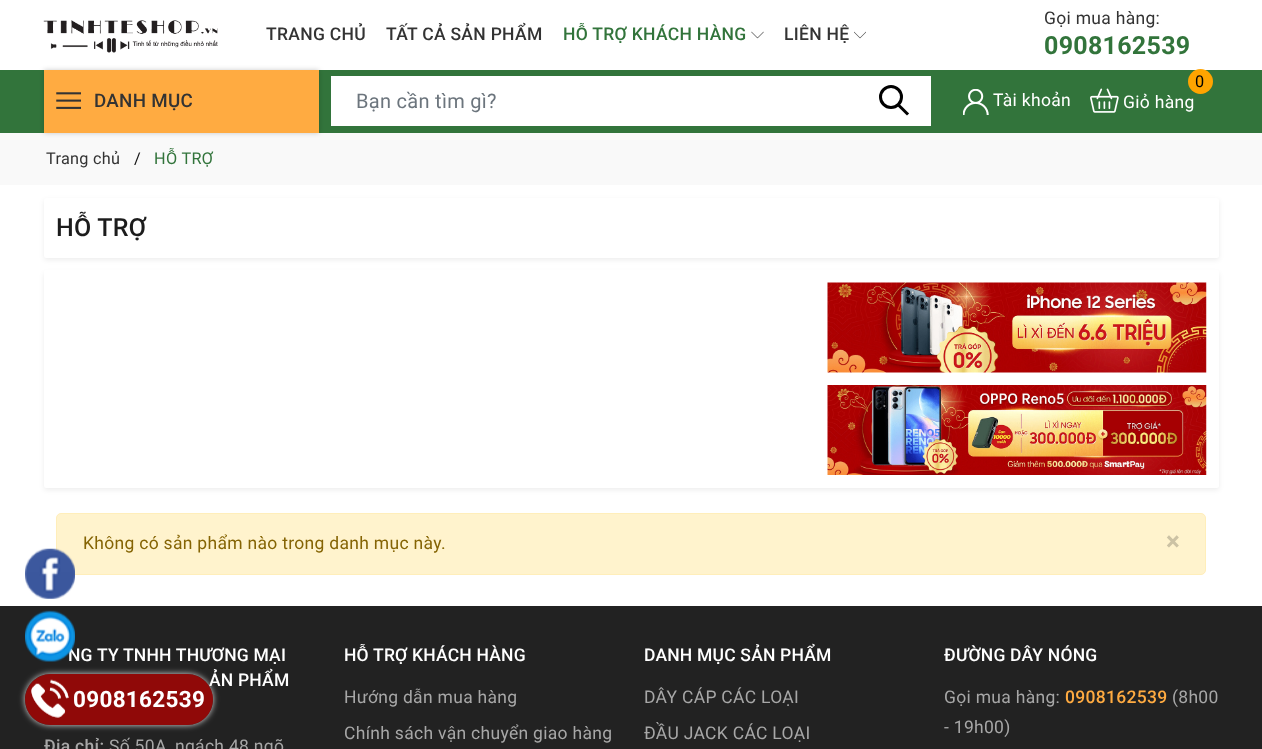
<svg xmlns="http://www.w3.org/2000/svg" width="1262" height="749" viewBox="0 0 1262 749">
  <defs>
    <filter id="blur1" x="-50%" y="-200%" width="200%" height="500%"><feGaussianBlur stdDeviation="2.5"/></filter>
    <clipPath id="clip1"><path d="M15 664H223V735H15ZM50.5 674H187.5C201.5 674 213 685.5 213 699.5C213 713.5 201.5 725 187.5 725H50.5C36.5 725 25 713.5 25 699.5C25 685.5 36.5 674 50.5 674Z" clip-rule="evenodd"/></clipPath>
    <filter id="blur2" x="-50%" y="-200%" width="200%" height="500%"><feGaussianBlur stdDeviation="3"/></filter>
  </defs>
  <rect width="100%" height="100%" fill="#ffffff"/>
  <image x="43" y="20" width="175" height="33" href="img1.png"/>
  <text x="266" y="40" font-family="Roboto" font-size="17.5" font-weight="500" letter-spacing="0.3" fill="#333333">TRANG CHỦ</text>
  <text x="386" y="40" font-family="Roboto" font-size="17.5" font-weight="500" letter-spacing="0.3" fill="#333333">TẤT CẢ SẢN PHẨM</text>
  <text x="563" y="40" font-family="Roboto" font-size="17.5" font-weight="500" letter-spacing="0.3" fill="#32743b">HỖ TRỢ KHÁCH HÀNG</text>
  <image x="751" y="31" width="13" height="8" href="img2.png"/>
  <text x="784" y="40" font-family="Roboto" font-size="17.5" font-weight="500" letter-spacing="0.3" fill="#333333">LIÊN HỆ</text>
  <image x="854" y="31" width="12" height="8" href="img3.png"/>
  <text x="1044" y="24" font-family="Roboto" font-size="17.5" letter-spacing="0.3" fill="#333333">Gọi mua hàng:</text>
  <text x="1044" y="54" font-family="Roboto" font-size="25" font-weight="bold" letter-spacing="0.3" fill="#32743b">0908162539</text>
  <rect x="0" y="70" width="1262" height="63" fill="#32743b"/>
  <rect x="0" y="133" width="1262" height="52" fill="#f9f9f9"/>
  <rect x="44" y="70" width="275" height="63" fill="#000000" fill-opacity="0.2" filter="url(#blur1)"/>
  <rect x="44" y="70" width="275" height="63" fill="#ffab41"/>
  <image x="56" y="92" width="25" height="17" href="img4.png"/>
  <text x="94" y="107" font-family="Roboto" font-size="18.75" font-weight="500" letter-spacing="0.3" fill="#333333">DANH MỤC</text>
  <rect x="331" y="76" width="600" height="50" fill="#ffffff"/>
  <text x="356" y="108" font-family="Roboto" font-size="20" letter-spacing="0.3" fill="#6c757d">Bạn cần tìm gì?</text>
  <path d="M907 113.5L898.5 105" fill="none" stroke="#000000" stroke-width="3" stroke-linecap="square"/>
  <circle cx="891" cy="97" r="10.5" fill="none" stroke="#000000" stroke-width="3"/>
  <image x="963" y="89" width="26" height="26" href="img5.png"/>
  <text x="993" y="106" font-family="Roboto" font-size="17.5" letter-spacing="0.3" fill="#ffffff">Tài khoản</text>
  <circle cx="1200.5" cy="81.5" r="12.5" fill="#ffa400"/>
  <text x="1195" y="87" font-family="Roboto" font-size="16.25" letter-spacing="0.3" fill="#000000">0</text>
  <image x="1090" y="88" width="29" height="25" href="img6.png"/>
  <text x="1123" y="108" font-family="Roboto" font-size="17.5" letter-spacing="0.3" fill="#ffffff">Giỏ hàng</text>
  <text x="46" y="164" font-family="Roboto" font-size="16.25" letter-spacing="0.3" fill="#333333">Trang chủ</text>
  <text x="134" y="164" font-family="Roboto" font-size="16.25" letter-spacing="0.3" fill="#111111">/</text>
  <text x="154" y="164" font-family="Roboto" font-size="16.25" letter-spacing="0.3" fill="#32743b">HỖ TRỢ</text>
  <rect x="44" y="200" width="1175" height="60" rx="2.5" fill="#000000" fill-opacity="0.07" filter="url(#blur1)"/>
  <rect x="44" y="198" width="1175" height="60" rx="2.5" fill="#ffffff"/>
  <text x="56" y="236" font-family="Roboto" font-size="25" font-weight="500" letter-spacing="0.25" fill="#1c1c1c">HỖ TRỢ</text>
  <rect x="44" y="273" width="1175" height="217" rx="2.5" fill="#000000" fill-opacity="0.07" filter="url(#blur1)"/>
  <rect x="44" y="270" width="1175" height="218" rx="2.5" fill="#ffffff"/>
  <image x="827" y="282" width="380" height="91" href="img7.png"/>
  <image x="827" y="385" width="380" height="90" href="img8.png"/>
  <rect x="56.5" y="513.5" width="1149" height="61" rx="4.5" fill="#fff3cd" stroke="#ffeeba"/>
  <text x="83" y="549" font-family="Roboto" font-size="17.5" letter-spacing="0.3" fill="#856404">Không có sản phẩm nào trong danh mục này.</text>
  <text x="1166" y="550" font-family="Roboto" font-size="26" font-weight="bold" letter-spacing="0.3" fill="#ccc2a4">×</text>
  <rect x="0" y="606" width="1262" height="143" fill="#222222"/>
  <text x="68" y="661" font-family="Roboto" font-size="17.5" font-weight="500" letter-spacing="0.2" fill="#ffffff">NG TY TNHH THƯƠNG MẠI</text>
  <text x="209" y="686" font-family="Roboto" font-size="17.5" font-weight="500" letter-spacing="0.2" fill="#ffffff">ẢN PHẨM</text>
  <text x="44" y="752" font-family="Roboto" font-size="17.5" font-weight="500" letter-spacing="0.3" fill="#a7a7a7">Địa chỉ:</text>
  <text x="109" y="752" font-family="Roboto" font-size="17.5" letter-spacing="0.3" fill="#a7a7a7">Số 50A, ngách 48 ngõ</text>
  <text x="344" y="661" font-family="Roboto" font-size="17.5" font-weight="500" letter-spacing="0.2" fill="#ffffff">HỖ TRỢ KHÁCH HÀNG</text>
  <text x="344" y="703" font-family="Roboto" font-size="17.5" letter-spacing="0.3" fill="#a7a7a7">Hướng dẫn mua hàng</text>
  <text x="344" y="739" font-family="Roboto" font-size="17.5" letter-spacing="0.3" fill="#a7a7a7">Chính sách vận chuyển giao hàng</text>
  <text x="644" y="661" font-family="Roboto" font-size="17.5" font-weight="500" letter-spacing="0.2" fill="#ffffff">DANH MỤC SẢN PHẨM</text>
  <text x="644" y="703" font-family="Roboto" font-size="17.5" letter-spacing="0.3" fill="#a7a7a7">DÂY CÁP CÁC LOẠI</text>
  <text x="644" y="739" font-family="Roboto" font-size="17.5" letter-spacing="0.3" fill="#a7a7a7">ĐẦU JACK CÁC LOẠI</text>
  <text x="944" y="661" font-family="Roboto" font-size="17.5" font-weight="500" letter-spacing="0.2" fill="#ffffff">ĐƯỜNG DÂY NÓNG</text>
  <text x="944" y="703" font-family="Roboto" font-size="17.5" letter-spacing="0.3" fill="#a7a7a7">Gọi mua hàng:</text>
  <text x="1065" y="703" font-family="Roboto" font-size="17.5" font-weight="500" letter-spacing="0.3" fill="#ffab41">0908162539</text>
  <text x="1172" y="703" font-family="Roboto" font-size="17.5" letter-spacing="0.3" fill="#a7a7a7">(8h00</text>
  <text x="944" y="733" font-family="Roboto" font-size="17.5" letter-spacing="0.3" fill="#a7a7a7">- 19h00)</text>
  <image x="25" y="548" width="50" height="51" href="img9.png"/>
  <image x="25" y="610" width="50" height="52" href="img10.png"/>
  <g clip-path="url(#clip1)">
    <rect x="25" y="674" width="188" height="51" rx="25.5" fill="#dddddd" filter="url(#blur2)"/>
  </g>
  <rect x="25" y="674" width="188" height="51" rx="25.5" fill="#b70100" fill-opacity="0.74"/>
  <image x="31" y="679" width="38" height="39" href="img11.png"/>
  <text x="73" y="707" font-family="Roboto" font-size="22.5" font-weight="bold" letter-spacing="0.3" fill="#ffffff">0908162539</text>
</svg>
